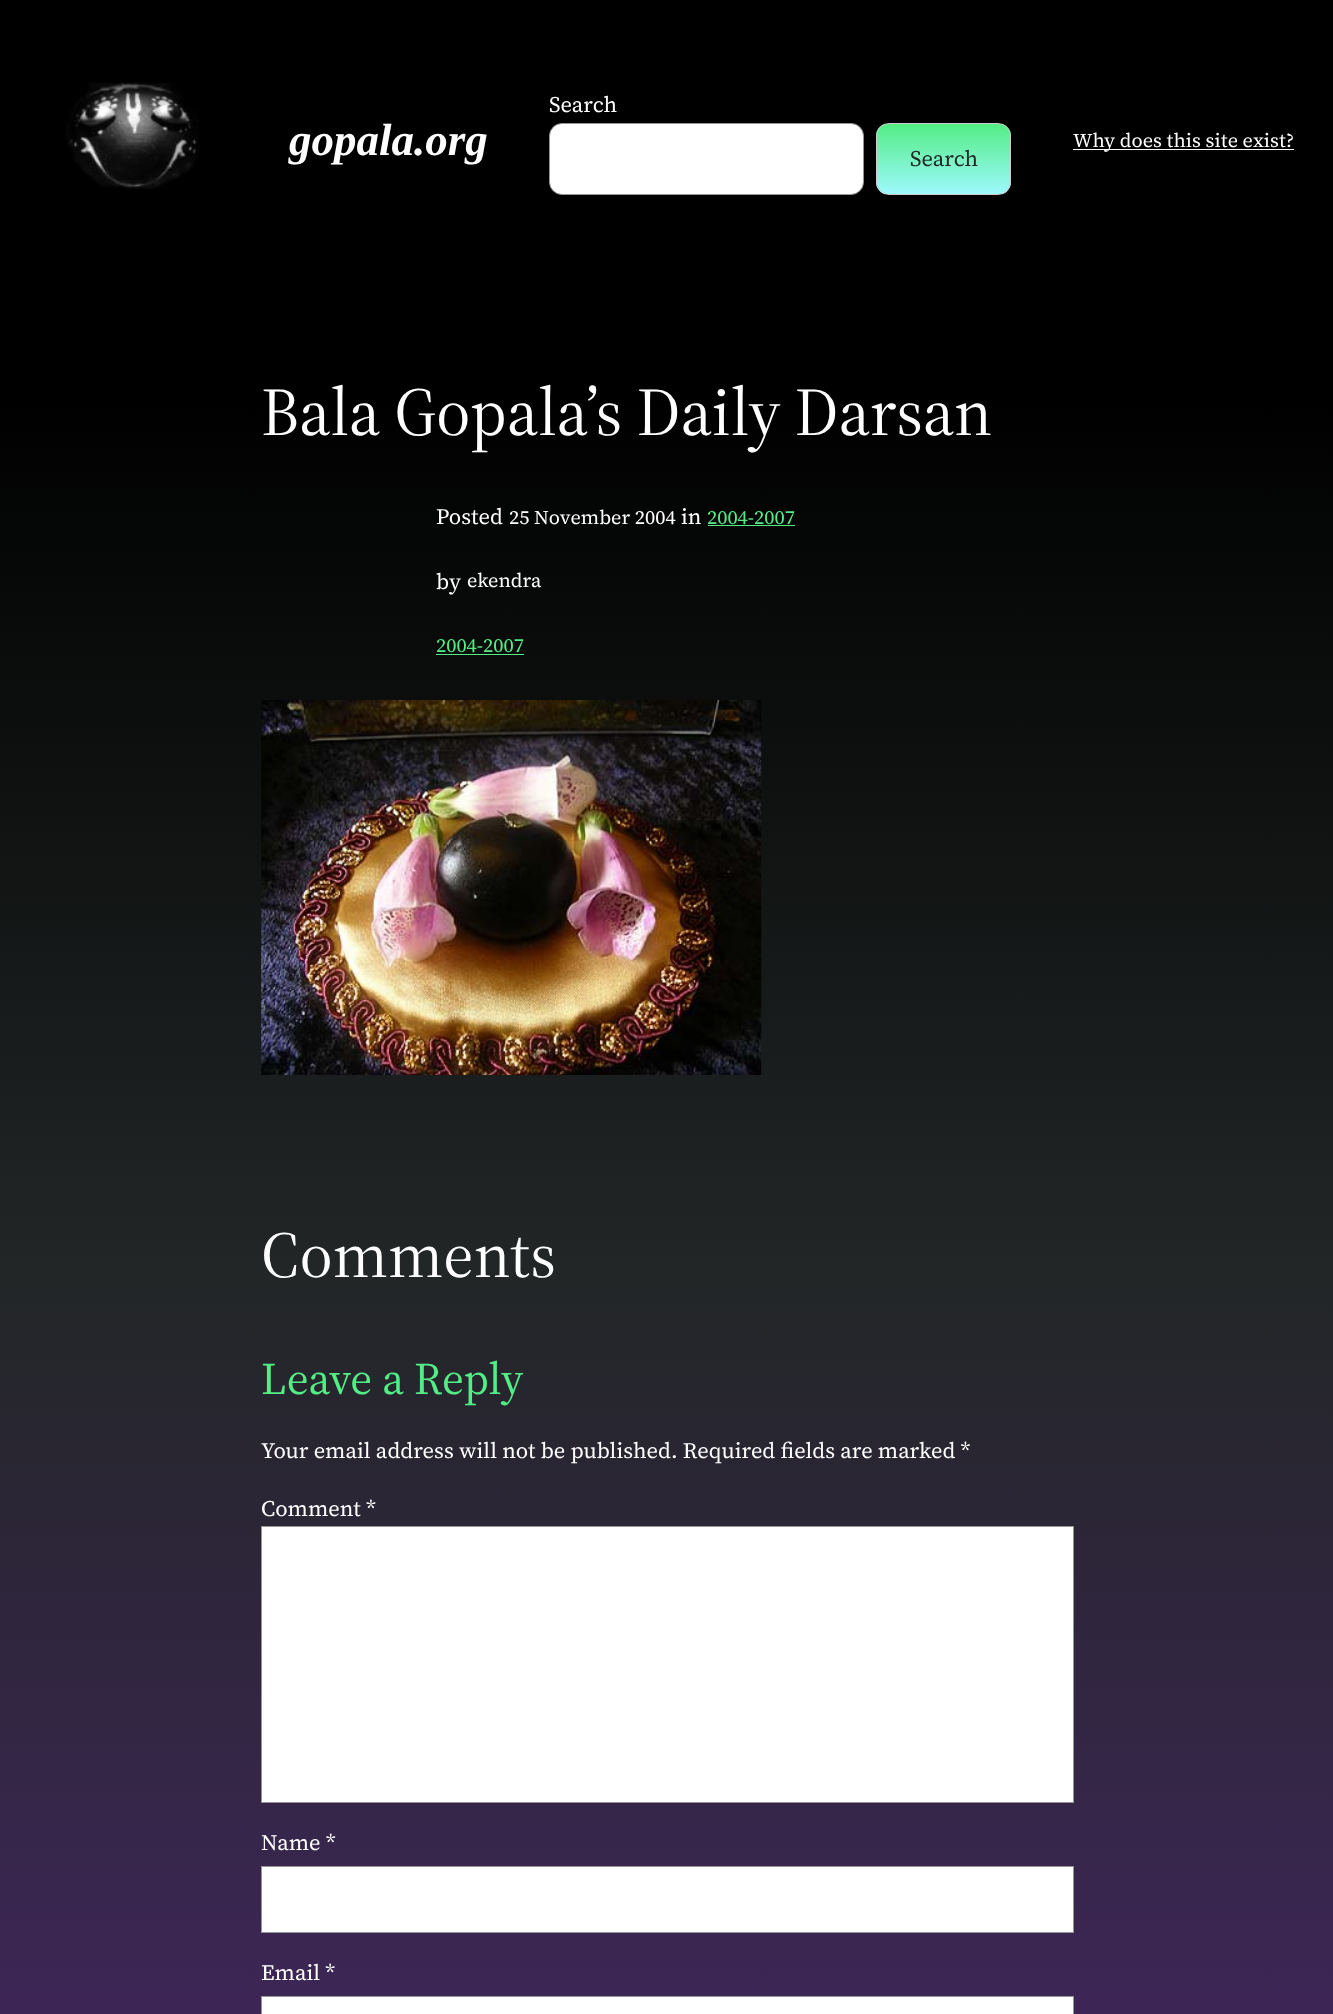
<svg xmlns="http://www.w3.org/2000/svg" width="1333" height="2014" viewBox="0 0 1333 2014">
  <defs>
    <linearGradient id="g1" gradientUnits="userSpaceOnUse" x1="667" y1="0" x2="667" y2="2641"><stop offset="0" stop-color="#000000"/><stop offset="0.15" stop-color="#000000"/><stop offset="0.48" stop-color="#222626"/><stop offset="1" stop-color="#54267f"/></linearGradient>
    <clipPath id="clip1"><rect x="876" y="123" width="135" height="72" rx="13"/></clipPath>
    <linearGradient id="g2" gradientUnits="userSpaceOnUse" x1="944" y1="124" x2="944" y2="194"><stop offset="0" stop-color="#53ed85"/><stop offset="1" stop-color="#9ef9fd"/></linearGradient>
  </defs>
  <rect width="100%" height="100%" fill="#ffffff"/>
  <rect x="0" y="0" width="1333" height="2014" fill="url(#g1)"/>
  <image x="65" y="82" width="135" height="107" href="img1.png"/>
  <text x="289" y="155" font-family="Liberation Serif" font-size="45" font-weight="bold" font-style="italic" fill="#ffffff">gopala.org</text>
  <text x="549" y="112" font-family="'Source Serif 4'" font-size="22.1" fill="#ffffff">Search</text>
  <rect x="549.5" y="123.5" width="314" height="71" rx="12.5" fill="#ffffff" stroke="#949494"/>
  <g clip-path="url(#clip1)">
    <rect x="876" y="124" width="135" height="70" fill="url(#g2)"/>
  </g>
  <rect x="876.5" y="123.5" width="134" height="71" rx="12.5" fill="none" stroke="#cccccc"/>
  <text x="910" y="166" font-family="'Source Serif 4'" font-size="22.1" fill="#222828">Search</text>
  <rect x="1073" y="149" width="221" height="1" fill="#ffffff"/>
  <text x="1073" y="147" font-family="'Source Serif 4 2'" font-size="19.6" fill="#ffffff">Why does this site exist?</text>
  <text x="261" y="435" font-family="'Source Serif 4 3'" font-size="67.75" fill="#ffffff">Bala Gopala’s Daily Darsan</text>
  <text x="436" y="524" font-family="'Source Serif 4'" font-size="22.1" fill="#ffffff">Posted</text>
  <text x="509" y="524" font-family="'Source Serif 4 2'" font-size="19.6" fill="#ffffff">25 November 2004</text>
  <text x="681" y="524" font-family="'Source Serif 4'" font-size="22.1" fill="#ffffff">in</text>
  <text x="707" y="524" font-family="'Source Serif 4 2'" font-size="19.6" fill="#53ed85">2004-2007</text>
  <rect x="708" y="525" width="87" height="1" fill="#53ed85"/>
  <text x="436" y="589" font-family="'Source Serif 4'" font-size="22.1" fill="#ffffff">by</text>
  <text x="467" y="587" font-family="'Source Serif 4 2'" font-size="19.6" fill="#ffffff">ekendra</text>
  <text x="436" y="652" font-family="'Source Serif 4 2'" font-size="19.6" fill="#53ed85">2004-2007</text>
  <rect x="436" y="654" width="88" height="1" fill="#53ed85"/>
  <image x="261" y="700" width="501" height="375" href="img2.png"/>
  <text x="261" y="1277" font-family="'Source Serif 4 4'" font-size="65" fill="#ffffff">Comments</text>
  <text x="261" y="1394" font-family="'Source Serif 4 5'" font-size="45" fill="#53ed85">Leave a Reply</text>
  <text x="261" y="1458" font-family="'Source Serif 4'" font-size="22.1" fill="#ffffff">Your email address will not be published. Required fields are marked *</text>
  <text x="261" y="1516" font-family="'Source Serif 4'" font-size="22.1" fill="#ffffff">Comment *</text>
  <rect x="261.5" y="1526.5" width="812" height="276" fill="#ffffff" stroke="#949494"/>
  <text x="261" y="1850" font-family="'Source Serif 4'" font-size="22.1" fill="#ffffff">Name *</text>
  <rect x="261.5" y="1866.5" width="812" height="66" fill="#ffffff" stroke="#949494"/>
  <text x="261" y="1980" font-family="'Source Serif 4'" font-size="22.1" fill="#ffffff">Email *</text>
  <rect x="261.5" y="1996.5" width="812" height="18" fill="#ffffff" stroke="#949494"/>
</svg>
